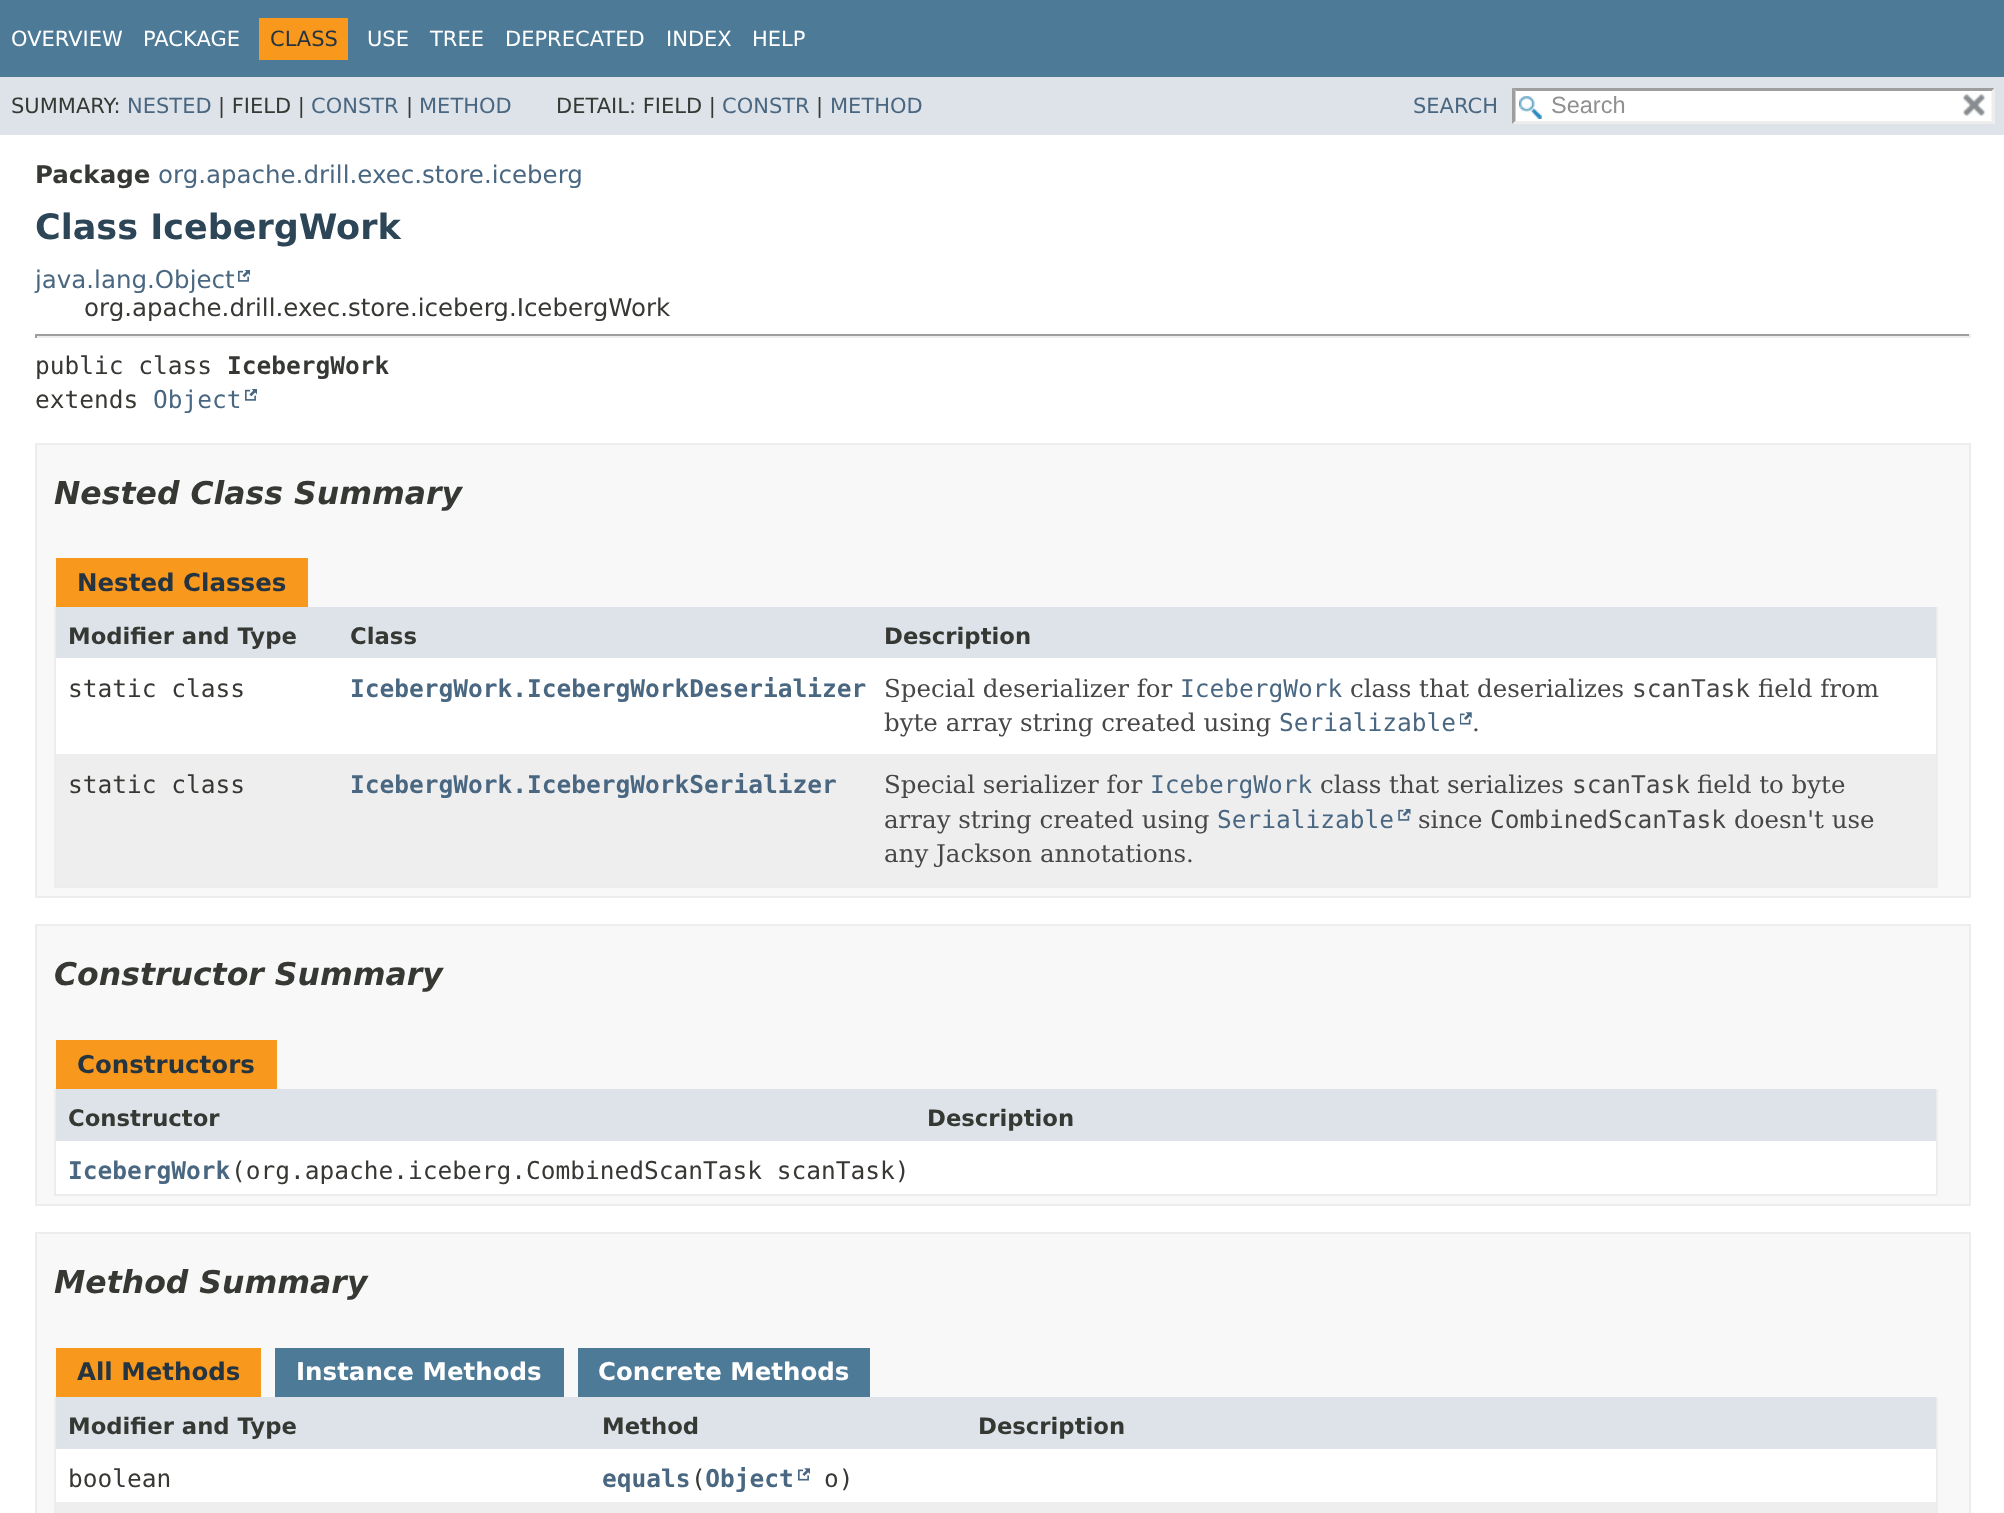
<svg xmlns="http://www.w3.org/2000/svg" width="2004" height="1513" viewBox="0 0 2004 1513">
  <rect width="100%" height="100%" fill="#ffffff"/>
  <rect x="0" y="0" width="2004" height="77" fill="#4d7a97"/>
  <text x="11" y="46" font-family="DejaVu Sans" font-size="21" fill="#ffffff">OVERVIEW</text>
  <text x="143" y="46" font-family="DejaVu Sans" font-size="21" fill="#ffffff">PACKAGE</text>
  <rect x="259" y="18" width="89" height="42" fill="#f8981d"/>
  <text x="270" y="46" font-family="DejaVu Sans" font-size="21" fill="#253441">CLASS</text>
  <text x="367" y="46" font-family="DejaVu Sans" font-size="21" fill="#ffffff">USE</text>
  <text x="430" y="46" font-family="DejaVu Sans" font-size="21" fill="#ffffff">TREE</text>
  <text x="505" y="46" font-family="DejaVu Sans" font-size="21" fill="#ffffff">DEPRECATED</text>
  <text x="666" y="46" font-family="DejaVu Sans" font-size="21" fill="#ffffff">INDEX</text>
  <text x="752" y="46" font-family="DejaVu Sans" font-size="21" fill="#ffffff">HELP</text>
  <rect x="0" y="77" width="2004" height="58" fill="#dee3e9"/>
  <text x="11" y="113" font-family="DejaVu Sans" font-size="21" fill="#353833">SUMMARY:</text>
  <text x="127" y="113" font-family="DejaVu Sans" font-size="21" fill="#4a6782">NESTED</text>
  <text x="218" y="113" font-family="DejaVu Sans" font-size="21" fill="#353833">| FIELD |</text>
  <text x="311" y="113" font-family="DejaVu Sans" font-size="21" fill="#4a6782">CONSTR</text>
  <text x="406" y="113" font-family="DejaVu Sans" font-size="21" fill="#353833">|</text>
  <text x="419" y="113" font-family="DejaVu Sans" font-size="21" fill="#4a6782">METHOD</text>
  <text x="556" y="113" font-family="DejaVu Sans" font-size="21" fill="#353833">DETAIL: FIELD |</text>
  <text x="722" y="113" font-family="DejaVu Sans" font-size="21" fill="#4a6782">CONSTR</text>
  <text x="816" y="113" font-family="DejaVu Sans" font-size="21" fill="#353833">|</text>
  <text x="830" y="113" font-family="DejaVu Sans" font-size="21" fill="#4a6782">METHOD</text>
  <text x="1413" y="113" font-family="DejaVu Sans" font-size="21" fill="#4a6782">SEARCH</text>
  <rect x="1512" y="88" width="483" height="36" fill="#ffffff"/>
  <image x="1519" y="96" width="23" height="23" href="img1.png"/>
  <path d="M1512 88H1995L1992 91H1516Z" fill="#9e9e9e"/>
  <path d="M1995 87.5V124L1991.5 121V91Z" fill="#ededed"/>
  <path d="M1995 124H1512L1516 121H1992Z" fill="#ededed"/>
  <path d="M1512 124V87.5L1515.5 91V121Z" fill="#9e9e9e"/>
  <text x="1551" y="113" font-family="Liberation Sans" font-size="23.5" fill="#909090">Search</text>
  <image x="1963" y="94" width="22" height="22" href="img2.png"/>
  <text x="35" y="183" font-family="DejaVu Sans" font-size="24.5" font-weight="bold" fill="#353833">Package</text>
  <text x="158" y="183" font-family="DejaVu Sans" font-size="24.5" fill="#4a6782">org.apache.drill.exec.store.iceberg</text>
  <text x="35" y="239" font-family="DejaVu Sans" font-size="35" font-weight="bold" fill="#2c4557">Class IcebergWork</text>
  <text x="35" y="288" font-family="DejaVu Sans" font-size="24.5" fill="#4a6782">java.lang.Object</text>
  <image x="238" y="270" width="12" height="12" href="img3.png"/>
  <text x="84" y="316" font-family="DejaVu Sans" font-size="24.5" fill="#353833">org.apache.drill.exec.store.iceberg.IcebergWork</text>
  <rect x="35" y="334" width="1936" height="2" fill="#9f9f9f"/>
  <rect x="1969" y="334" width="2" height="4" fill="#eeeeee"/>
  <rect x="35" y="336" width="1936" height="2" fill="#eeeeee"/>
  <rect x="35" y="334" width="2" height="4" fill="#9f9f9f"/>
  <text x="35" y="374" font-family="DejaVu Sans Mono" font-size="24.5" fill="#353833">public class</text>
  <text x="227" y="374" font-family="DejaVu Sans Mono" font-size="24.5" font-weight="bold" fill="#353833">IcebergWork</text>
  <text x="35" y="408" font-family="DejaVu Sans Mono" font-size="24.5" fill="#353833">extends</text>
  <text x="153" y="408" font-family="DejaVu Sans Mono" font-size="24.5" fill="#4a6782">Object</text>
  <image x="245" y="389" width="12" height="12" href="img3.png"/>
  <rect x="36" y="444" width="1934" height="453" fill="#f8f8f8" stroke="#ededed" stroke-width="2"/>
  <text x="54" y="504" font-family="DejaVu Sans" font-size="31.5" font-weight="bold" font-style="italic" fill="#353833">Nested Class Summary</text>
  <rect x="56" y="558" width="252" height="49" fill="#f8981d"/>
  <text x="77" y="591" font-family="DejaVu Sans" font-size="24.5" font-weight="bold" fill="#253441">Nested Classes</text>
  <rect x="1936" y="607" width="2" height="280" fill="#ededed"/>
  <rect x="54" y="886" width="1883" height="2" fill="#ededed"/>
  <rect x="54" y="607" width="2" height="280" fill="#ededed"/>
  <rect x="56" y="607" width="1880" height="51" fill="#dee3e9"/>
  <text x="68" y="644" font-family="DejaVu Sans" font-size="22.75" font-weight="bold" fill="#353833">Modifier and Type</text>
  <text x="350" y="644" font-family="DejaVu Sans" font-size="22.75" font-weight="bold" fill="#353833">Class</text>
  <text x="884" y="644" font-family="DejaVu Sans" font-size="22.75" font-weight="bold" fill="#353833">Description</text>
  <rect x="56" y="658" width="1880" height="96" fill="#ffffff"/>
  <text x="68" y="697" font-family="DejaVu Sans Mono" font-size="24.5" fill="#353833">static class</text>
  <text x="350" y="697" font-family="DejaVu Sans Mono" font-size="24.5" font-weight="bold" fill="#4a6782">IcebergWork.IcebergWorkDeserializer</text>
  <text x="884" y="697" font-family="DejaVu Serif" font-size="24.5" fill="#474747">Special deserializer for</text>
  <text x="1180" y="697" font-family="DejaVu Sans Mono" font-size="24.5" fill="#4a6782">IcebergWork</text>
  <text x="1350" y="697" font-family="DejaVu Serif" font-size="24.5" fill="#474747">class that deserializes</text>
  <text x="1632" y="697" font-family="DejaVu Sans Mono" font-size="24.5" fill="#474747">scanTask</text>
  <text x="1758" y="697" font-family="DejaVu Serif" font-size="24.5" fill="#474747">field from</text>
  <text x="884" y="731" font-family="DejaVu Serif" font-size="24.5" fill="#474747">byte array string created using</text>
  <text x="1279" y="731" font-family="DejaVu Sans Mono" font-size="24.5" fill="#4a6782">Serializable</text>
  <image x="1460" y="712" width="12" height="13" href="img4.png"/>
  <text x="1472" y="731" font-family="DejaVu Serif" font-size="24.5" fill="#474747">.</text>
  <rect x="56" y="754" width="1880" height="132" fill="#eeeeef"/>
  <text x="68" y="793" font-family="DejaVu Sans Mono" font-size="24.5" fill="#353833">static class</text>
  <text x="350" y="793" font-family="DejaVu Sans Mono" font-size="24.5" font-weight="bold" fill="#4a6782">IcebergWork.IcebergWorkSerializer</text>
  <text x="884" y="793" font-family="DejaVu Serif" font-size="24.5" fill="#474747">Special serializer for</text>
  <text x="1150" y="793" font-family="DejaVu Sans Mono" font-size="24.5" fill="#4a6782">IcebergWork</text>
  <text x="1320" y="793" font-family="DejaVu Serif" font-size="24.5" fill="#474747">class that serializes</text>
  <text x="1572" y="793" font-family="DejaVu Sans Mono" font-size="24.5" fill="#474747">scanTask</text>
  <text x="1697" y="793" font-family="DejaVu Serif" font-size="24.5" fill="#474747">field to byte</text>
  <text x="884" y="828" font-family="DejaVu Serif" font-size="24.5" fill="#474747">array string created using</text>
  <text x="1217" y="828" font-family="DejaVu Sans Mono" font-size="24.5" fill="#4a6782">Serializable</text>
  <image x="1398" y="809" width="13" height="12" href="img5.png"/>
  <text x="1418" y="828" font-family="DejaVu Serif" font-size="24.5" fill="#474747">since</text>
  <text x="1490" y="828" font-family="DejaVu Sans Mono" font-size="24.5" fill="#474747">CombinedScanTask</text>
  <text x="1734" y="828" font-family="DejaVu Serif" font-size="24.5" fill="#474747">doesn't use</text>
  <text x="884" y="862" font-family="DejaVu Serif" font-size="24.5" fill="#474747">any Jackson annotations.</text>
  <rect x="36" y="925" width="1934" height="280" fill="#f8f8f8" stroke="#ededed" stroke-width="2"/>
  <text x="54" y="985" font-family="DejaVu Sans" font-size="31.5" font-weight="bold" font-style="italic" fill="#353833">Constructor Summary</text>
  <rect x="56" y="1040" width="221" height="49" fill="#f8981d"/>
  <text x="77" y="1073" font-family="DejaVu Sans" font-size="24.5" font-weight="bold" fill="#253441">Constructors</text>
  <rect x="1936" y="1089" width="2" height="106" fill="#ededed"/>
  <rect x="54" y="1194" width="1883" height="2" fill="#ededed"/>
  <rect x="54" y="1089" width="2" height="106" fill="#ededed"/>
  <rect x="56" y="1089" width="1880" height="52" fill="#dee3e9"/>
  <text x="68" y="1126" font-family="DejaVu Sans" font-size="22.75" font-weight="bold" fill="#353833">Constructor</text>
  <text x="927" y="1126" font-family="DejaVu Sans" font-size="22.75" font-weight="bold" fill="#353833">Description</text>
  <rect x="56" y="1141" width="1880" height="53" fill="#ffffff"/>
  <text x="68" y="1179" font-family="DejaVu Sans Mono" font-size="24.5" font-weight="bold" fill="#4a6782">IcebergWork</text>
  <text x="231" y="1179" font-family="DejaVu Sans Mono" font-size="24.5" fill="#353833">(org.apache.iceberg.CombinedScanTask scanTask)</text>
  <rect x="36" y="1233" width="1934" height="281" fill="#f8f8f8" stroke="#ededed" stroke-width="2"/>
  <text x="54" y="1293" font-family="DejaVu Sans" font-size="31.5" font-weight="bold" font-style="italic" fill="#353833">Method Summary</text>
  <rect x="56" y="1348" width="205" height="49" fill="#f8981d"/>
  <text x="77" y="1380" font-family="DejaVu Sans" font-size="24.5" font-weight="bold" fill="#253441">All Methods</text>
  <rect x="275" y="1348" width="289" height="49" fill="#4d7a97"/>
  <text x="296" y="1380" font-family="DejaVu Sans" font-size="24.5" font-weight="bold" fill="#ffffff">Instance Methods</text>
  <rect x="578" y="1348" width="292" height="49" fill="#4d7a97"/>
  <text x="598" y="1380" font-family="DejaVu Sans" font-size="24.5" font-weight="bold" fill="#ffffff">Concrete Methods</text>
  <rect x="1936" y="1397" width="2" height="116" fill="#ededed"/>
  <rect x="54" y="1397" width="2" height="116" fill="#ededed"/>
  <rect x="56" y="1397" width="1880" height="52" fill="#dee3e9"/>
  <text x="68" y="1434" font-family="DejaVu Sans" font-size="22.75" font-weight="bold" fill="#353833">Modifier and Type</text>
  <text x="602" y="1434" font-family="DejaVu Sans" font-size="22.75" font-weight="bold" fill="#353833">Method</text>
  <text x="978" y="1434" font-family="DejaVu Sans" font-size="22.75" font-weight="bold" fill="#353833">Description</text>
  <rect x="56" y="1449" width="1880" height="53" fill="#ffffff"/>
  <text x="68" y="1487" font-family="DejaVu Sans Mono" font-size="24.5" fill="#353833">boolean</text>
  <text x="602" y="1487" font-family="DejaVu Sans Mono" font-size="24.5" font-weight="bold" fill="#4a6782">equals Object</text>
  <text x="691" y="1487" font-family="DejaVu Sans Mono" font-size="24.5" fill="#353833">(</text>
  <image x="798" y="1468" width="12" height="13" href="img6.png"/>
  <text x="824" y="1487" font-family="DejaVu Sans Mono" font-size="24.5" fill="#353833">o)</text>
  <rect x="56" y="1502" width="1880" height="11" fill="#eeeeef"/>
</svg>
